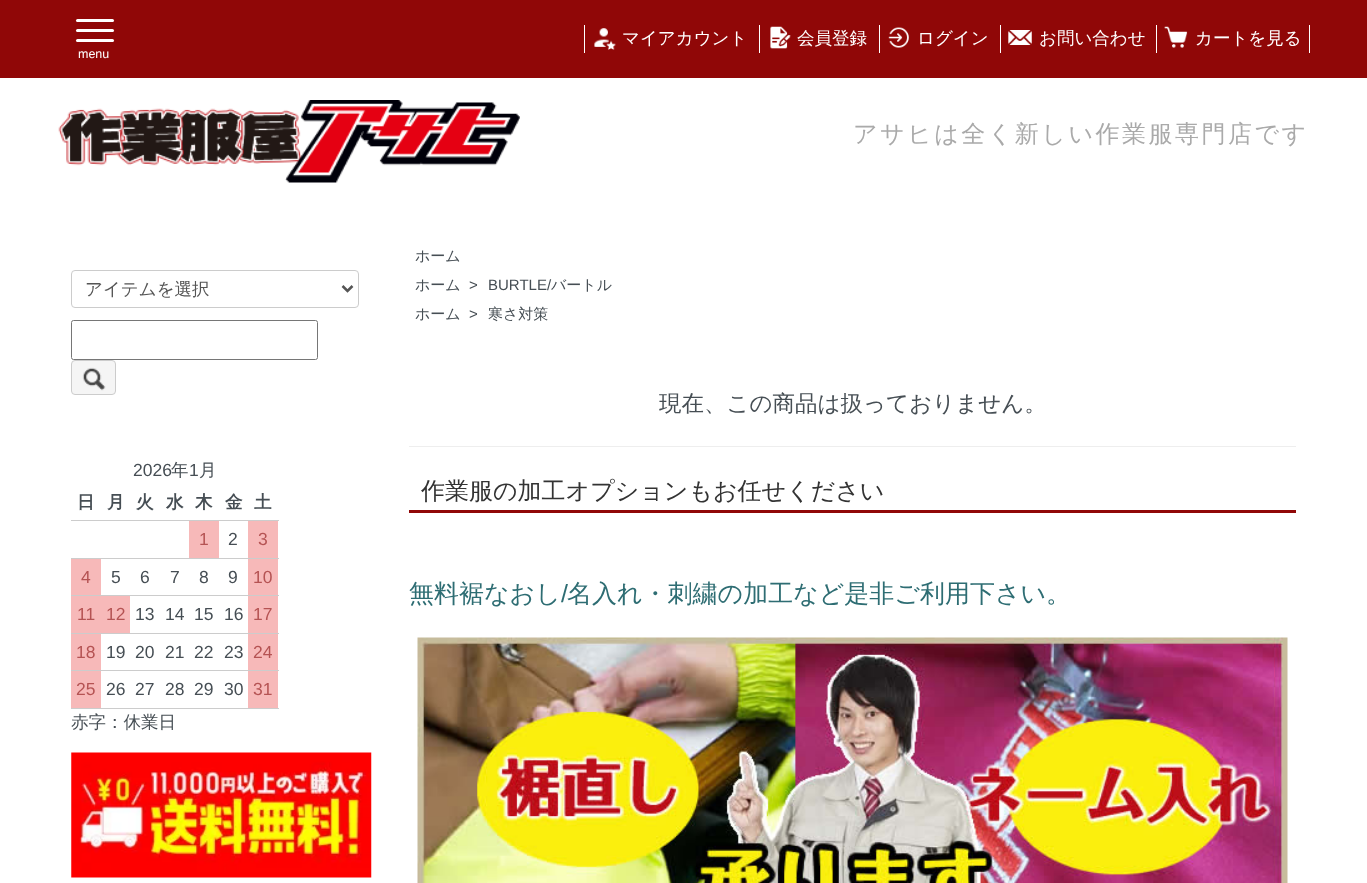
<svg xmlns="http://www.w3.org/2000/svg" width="1367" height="883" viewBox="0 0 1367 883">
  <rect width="100%" height="100%" fill="#ffffff"/>
  <rect x="0" y="0" width="1367" height="78" fill="#900707"/>
  <rect x="1309" y="25" width="1" height="28" fill="#ffffff"/>
  <rect x="584" y="25" width="1" height="28" fill="#ffffff"/>
  <image x="594" y="28" width="22" height="22" href="img1.png"/>
  <text x="622" y="44" font-family="WenQuanYi Zen Hei" font-size="17.5" font-weight="500" fill="#ffffff">マイアカウント</text>
  <rect x="759" y="25" width="1" height="28" fill="#ffffff"/>
  <image x="770" y="26" width="21" height="23" href="img2.png"/>
  <text x="797" y="44" font-family="WenQuanYi Zen Hei" font-size="17.5" font-weight="500" fill="#ffffff">会員登録</text>
  <rect x="879" y="25" width="1" height="28" fill="#ffffff"/>
  <image x="888" y="27" width="21" height="21" href="img3.png"/>
  <text x="917" y="44" font-family="WenQuanYi Zen Hei" font-size="17.5" font-weight="500" fill="#ffffff">ログイン</text>
  <rect x="1000" y="25" width="1" height="28" fill="#ffffff"/>
  <image x="1008" y="30" width="24" height="15" href="img4.png"/>
  <text x="1039" y="44" font-family="WenQuanYi Zen Hei" font-size="17.5" font-weight="500" fill="#ffffff">お問い合わせ</text>
  <rect x="1156" y="25" width="1" height="28" fill="#ffffff"/>
  <image x="1164" y="26" width="24" height="22" href="img5.png"/>
  <text x="1195" y="44" font-family="WenQuanYi Zen Hei" font-size="17.5" font-weight="500" fill="#ffffff">カートを見る</text>
  <rect x="76" y="19" width="38" height="3" rx="1.5" fill="#ffffff"/>
  <rect x="76" y="29" width="38" height="3" rx="1.5" fill="#ffffff"/>
  <rect x="76" y="39" width="38" height="3" rx="1.5" fill="#ffffff"/>
  <text x="78" y="58" font-family="Liberation Sans" font-size="12.5" fill="#ffffff">menu</text>
  <image x="58" y="100" width="462" height="83" href="img6.png"/>
  <text x="853" y="142" font-family="WenQuanYi Zen Hei" font-size="24" font-weight="500" letter-spacing="2.5" fill="#aaaaaa">アサヒは全く新しい作業服専門店です</text>
  <rect x="71.5" y="270.5" width="287" height="37" rx="3.5" fill="none" stroke="#cccccc"/>
  <path d="M342.5 286L347.5 291L352.5 286" fill="none" stroke="#555555" stroke-width="2.5"/>
  <text x="85" y="295" font-family="WenQuanYi Zen Hei" font-size="17.5" font-weight="500" fill="#555555">アイテムを選択</text>
  <rect x="71.5" y="320.5" width="246" height="39" rx="2" fill="none" stroke="#767676"/>
  <rect x="71.5" y="360.5" width="44" height="34" rx="3.5" fill="#f5f5f5" stroke="#cccccc"/>
  <image x="82" y="367" width="24" height="24" href="img7.png"/>
  <text x="133" y="476" font-family="Liberation Sans" font-size="17.5" fill="#464e54">2026</text>
  <text x="171" y="476" font-family="WenQuanYi Zen Hei" font-size="17.5" font-weight="500" fill="#464e54">年</text>
  <text x="189" y="476" font-family="Liberation Sans" font-size="17.5" fill="#464e54">1</text>
  <text x="199" y="476" font-family="WenQuanYi Zen Hei" font-size="17.5" font-weight="500" fill="#464e54">月</text>
  <text x="77" y="508" font-family="WenQuanYi Zen Hei" font-size="17.5" font-weight="bold" fill="#464e54">日</text>
  <text x="107" y="508" font-family="WenQuanYi Zen Hei" font-size="17.5" font-weight="bold" fill="#464e54">月</text>
  <text x="136" y="508" font-family="WenQuanYi Zen Hei" font-size="17.5" font-weight="bold" fill="#464e54">火</text>
  <text x="166" y="508" font-family="WenQuanYi Zen Hei" font-size="17.5" font-weight="bold" fill="#464e54">水</text>
  <text x="195" y="508" font-family="WenQuanYi Zen Hei" font-size="17.5" font-weight="bold" fill="#464e54">木</text>
  <text x="225" y="508" font-family="WenQuanYi Zen Hei" font-size="17.5" font-weight="bold" fill="#464e54">金</text>
  <rect x="71" y="520" width="208" height="1" fill="#cccccc"/>
  <text x="254" y="508" font-family="WenQuanYi Zen Hei" font-size="17.5" font-weight="bold" fill="#464e54">土</text>
  <rect x="189" y="521" width="30" height="37" fill="#f7b9b9"/>
  <text x="199" y="545" font-family="Liberation Sans" font-size="17.5" fill="#b55353">1</text>
  <text x="228" y="545" font-family="Liberation Sans" font-size="17.5" fill="#464e54">2</text>
  <rect x="248" y="521" width="30" height="37" fill="#f7b9b9"/>
  <rect x="71" y="558" width="208" height="1" fill="#cccccc"/>
  <text x="258" y="545" font-family="Liberation Sans" font-size="17.5" fill="#b55353">3</text>
  <rect x="71" y="559" width="30" height="36" fill="#f7b9b9"/>
  <text x="81" y="583" font-family="Liberation Sans" font-size="17.5" fill="#b55353">4</text>
  <text x="111" y="583" font-family="Liberation Sans" font-size="17.5" fill="#464e54">5</text>
  <text x="140" y="583" font-family="Liberation Sans" font-size="17.5" fill="#464e54">6</text>
  <text x="170" y="583" font-family="Liberation Sans" font-size="17.5" fill="#464e54">7</text>
  <text x="199" y="583" font-family="Liberation Sans" font-size="17.5" fill="#464e54">8</text>
  <text x="228" y="583" font-family="Liberation Sans" font-size="17.5" fill="#464e54">9</text>
  <rect x="248" y="559" width="30" height="36" fill="#f7b9b9"/>
  <rect x="71" y="595" width="208" height="1" fill="#cccccc"/>
  <text x="253" y="583" font-family="Liberation Sans" font-size="17.5" fill="#b55353">10</text>
  <rect x="71" y="596" width="59" height="37" fill="#f7b9b9"/>
  <text x="77" y="620" font-family="Liberation Sans" font-size="17.5" fill="#b55353">11</text>
  <text x="106" y="620" font-family="Liberation Sans" font-size="17.5" fill="#b55353">12</text>
  <text x="135" y="620" font-family="Liberation Sans" font-size="17.5" fill="#464e54">13</text>
  <text x="165" y="620" font-family="Liberation Sans" font-size="17.5" fill="#464e54">14</text>
  <text x="194" y="620" font-family="Liberation Sans" font-size="17.5" fill="#464e54">15</text>
  <text x="224" y="620" font-family="Liberation Sans" font-size="17.5" fill="#464e54">16</text>
  <rect x="248" y="596" width="30" height="37" fill="#f7b9b9"/>
  <rect x="71" y="633" width="208" height="1" fill="#cccccc"/>
  <text x="253" y="620" font-family="Liberation Sans" font-size="17.5" fill="#b55353">17</text>
  <rect x="71" y="634" width="30" height="36" fill="#f7b9b9"/>
  <text x="76" y="658" font-family="Liberation Sans" font-size="17.5" fill="#b55353">18</text>
  <text x="106" y="658" font-family="Liberation Sans" font-size="17.5" fill="#464e54">19</text>
  <text x="135" y="658" font-family="Liberation Sans" font-size="17.5" fill="#464e54">20</text>
  <text x="165" y="658" font-family="Liberation Sans" font-size="17.5" fill="#464e54">21</text>
  <text x="194" y="658" font-family="Liberation Sans" font-size="17.5" fill="#464e54">22</text>
  <text x="224" y="658" font-family="Liberation Sans" font-size="17.5" fill="#464e54">23</text>
  <rect x="248" y="634" width="30" height="36" fill="#f7b9b9"/>
  <rect x="71" y="670" width="208" height="1" fill="#cccccc"/>
  <text x="253" y="658" font-family="Liberation Sans" font-size="17.5" fill="#b55353">24</text>
  <rect x="71" y="671" width="30" height="37" fill="#f7b9b9"/>
  <text x="76" y="695" font-family="Liberation Sans" font-size="17.5" fill="#b55353">25</text>
  <text x="106" y="695" font-family="Liberation Sans" font-size="17.5" fill="#464e54">26</text>
  <text x="135" y="695" font-family="Liberation Sans" font-size="17.5" fill="#464e54">27</text>
  <text x="165" y="695" font-family="Liberation Sans" font-size="17.5" fill="#464e54">28</text>
  <text x="194" y="695" font-family="Liberation Sans" font-size="17.5" fill="#464e54">29</text>
  <text x="224" y="695" font-family="Liberation Sans" font-size="17.5" fill="#464e54">30</text>
  <rect x="248" y="671" width="30" height="37" fill="#f7b9b9"/>
  <rect x="71" y="708" width="208" height="1" fill="#cccccc"/>
  <text x="253" y="695" font-family="Liberation Sans" font-size="17.5" fill="#b55353">31</text>
  <text x="71" y="728" font-family="WenQuanYi Zen Hei" font-size="17.5" font-weight="500" fill="#464e54">赤字：休業日</text>
  <image x="71" y="752" width="301" height="126" href="img8.png"/>
  <text x="415" y="261" font-family="WenQuanYi Zen Hei" font-size="15" font-weight="500" fill="#464e54">ホーム</text>
  <text x="415" y="290" font-family="WenQuanYi Zen Hei" font-size="15" font-weight="500" fill="#464e54">ホーム</text>
  <text x="469" y="290" font-family="Liberation Sans" font-size="15" fill="#464e54">&gt;</text>
  <text x="488" y="290" font-family="Liberation Sans" font-size="15" fill="#464e54">BURTLE/</text>
  <text x="551" y="290" font-family="WenQuanYi Zen Hei" font-size="15" font-weight="500" fill="#464e54">バートル</text>
  <text x="415" y="319" font-family="WenQuanYi Zen Hei" font-size="15" font-weight="500" fill="#464e54">ホーム</text>
  <text x="469" y="319" font-family="Liberation Sans" font-size="15" fill="#464e54">&gt;</text>
  <text x="488" y="319" font-family="WenQuanYi Zen Hei" font-size="15" font-weight="500" fill="#464e54">寒さ対策</text>
  <text x="659" y="411" font-family="WenQuanYi Zen Hei" font-size="22.5" font-weight="500" fill="#464e54">現在、この商品は扱っておりません。</text>
  <rect x="409" y="446" width="887" height="1" fill="#eeeeee"/>
  <rect x="409" y="510" width="887" height="3" fill="#900707"/>
  <text x="421" y="499" font-family="WenQuanYi Zen Hei" font-size="24" font-weight="500" fill="#333333">作業服の加工オプションもお任せください</text>
  <text x="409" y="602" font-family="WenQuanYi Zen Hei" font-size="25" font-weight="500" fill="#2e6d73">無料裾なおし</text>
  <text x="561" y="602" font-family="Liberation Sans" font-size="25" fill="#2e6d73">/</text>
  <text x="567" y="602" font-family="WenQuanYi Zen Hei" font-size="25" font-weight="500" fill="#2e6d73">名入れ・刺繍の加工など是非ご利用下さい。</text>
  <image x="417" y="637" width="871" height="246" href="img9.png"/>
</svg>
